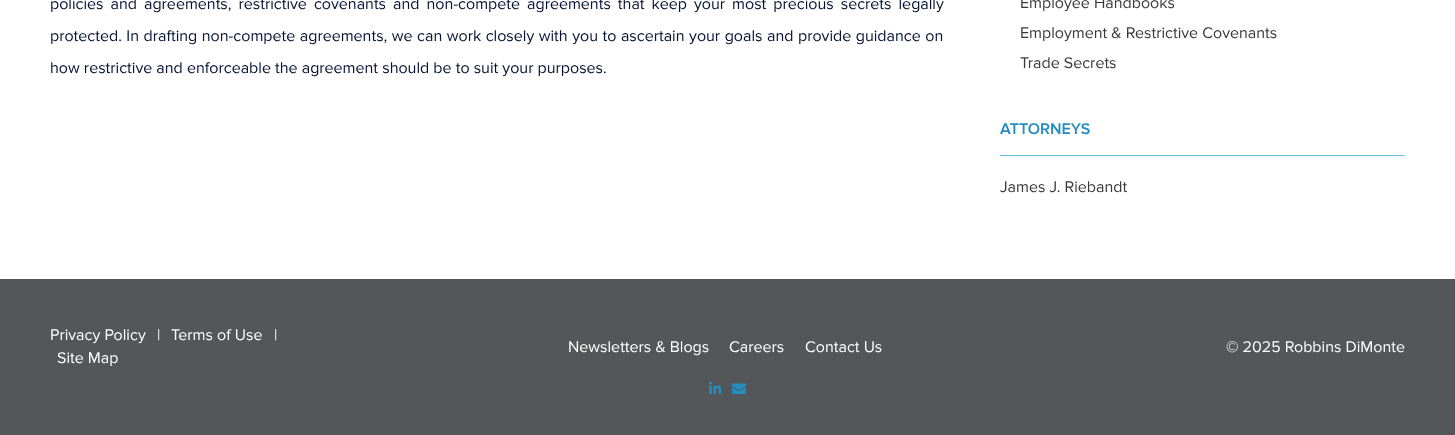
<svg xmlns="http://www.w3.org/2000/svg" width="1455" height="435" viewBox="0 0 1455 435">
  <rect width="100%" height="100%" fill="#ffffff"/>
  <text x="50" y="9" word-spacing="2.9" font-family="Proxima Nova" font-size="16" fill="#051133">policies and agreements, restrictive covenants and non-compete agreements that keep your most precious secrets legally</text>
  <text x="50" y="41" word-spacing="0.4" font-family="Proxima Nova" font-size="16" fill="#051133">protected. In drafting non-compete agreements, we can work closely with you to ascertain your goals and provide guidance on</text>
  <text x="50" y="73" font-family="Proxima Nova" font-size="16" fill="#051133">how restrictive and enforceable the agreement should be to suit your purposes.</text>
  <text x="1020" y="8" font-family="Proxima Nova" font-size="16" fill="#393939">Employee Handbooks</text>
  <text x="1020" y="38" font-family="Proxima Nova" font-size="16" fill="#393939">Employment &amp; Restrictive Covenants</text>
  <text x="1020" y="68" font-family="Proxima Nova" font-size="16" fill="#393939">Trade Secrets</text>
  <rect x="1000" y="155" width="405" height="1" fill="#69bbe4"/>
  <text x="1000" y="134" font-family="Proxima Nova" font-size="16" font-weight="600" fill="#248dc1">ATTORNEYS</text>
  <text x="1000" y="192" font-family="Proxima Nova" font-size="16" fill="#393939">James J. Riebandt</text>
  <rect x="0" y="279" width="1455" height="156" fill="#54575a"/>
  <text x="50" y="340" font-family="Proxima Nova" font-size="16" fill="#ffffff">Privacy Policy</text>
  <text x="157" y="340" font-family="Proxima Nova" font-size="16" fill="#ffffff">|</text>
  <text x="171" y="340" font-family="Proxima Nova" font-size="16" fill="#ffffff">Terms of Use</text>
  <text x="274" y="340" font-family="Proxima Nova" font-size="16" fill="#ffffff">|</text>
  <text x="57" y="363" font-family="Proxima Nova" font-size="16" fill="#ffffff">Site Map</text>
  <text x="568" y="352" font-family="Proxima Nova" font-size="16" fill="#ffffff">Newsletters &amp; Blogs</text>
  <text x="729" y="352" font-family="Proxima Nova" font-size="16" fill="#ffffff">Careers</text>
  <text x="805" y="352" font-family="Proxima Nova" font-size="16" fill="#ffffff">Contact Us</text>
  <text x="1226" y="352" font-family="Proxima Nova" font-size="16" fill="#ffffff">© 2025 Robbins DiMonte</text>
  <image x="709" y="381" width="13" height="13" href="img1.png"/>
  <image x="732" y="383" width="14" height="11" href="img2.png"/>
</svg>
